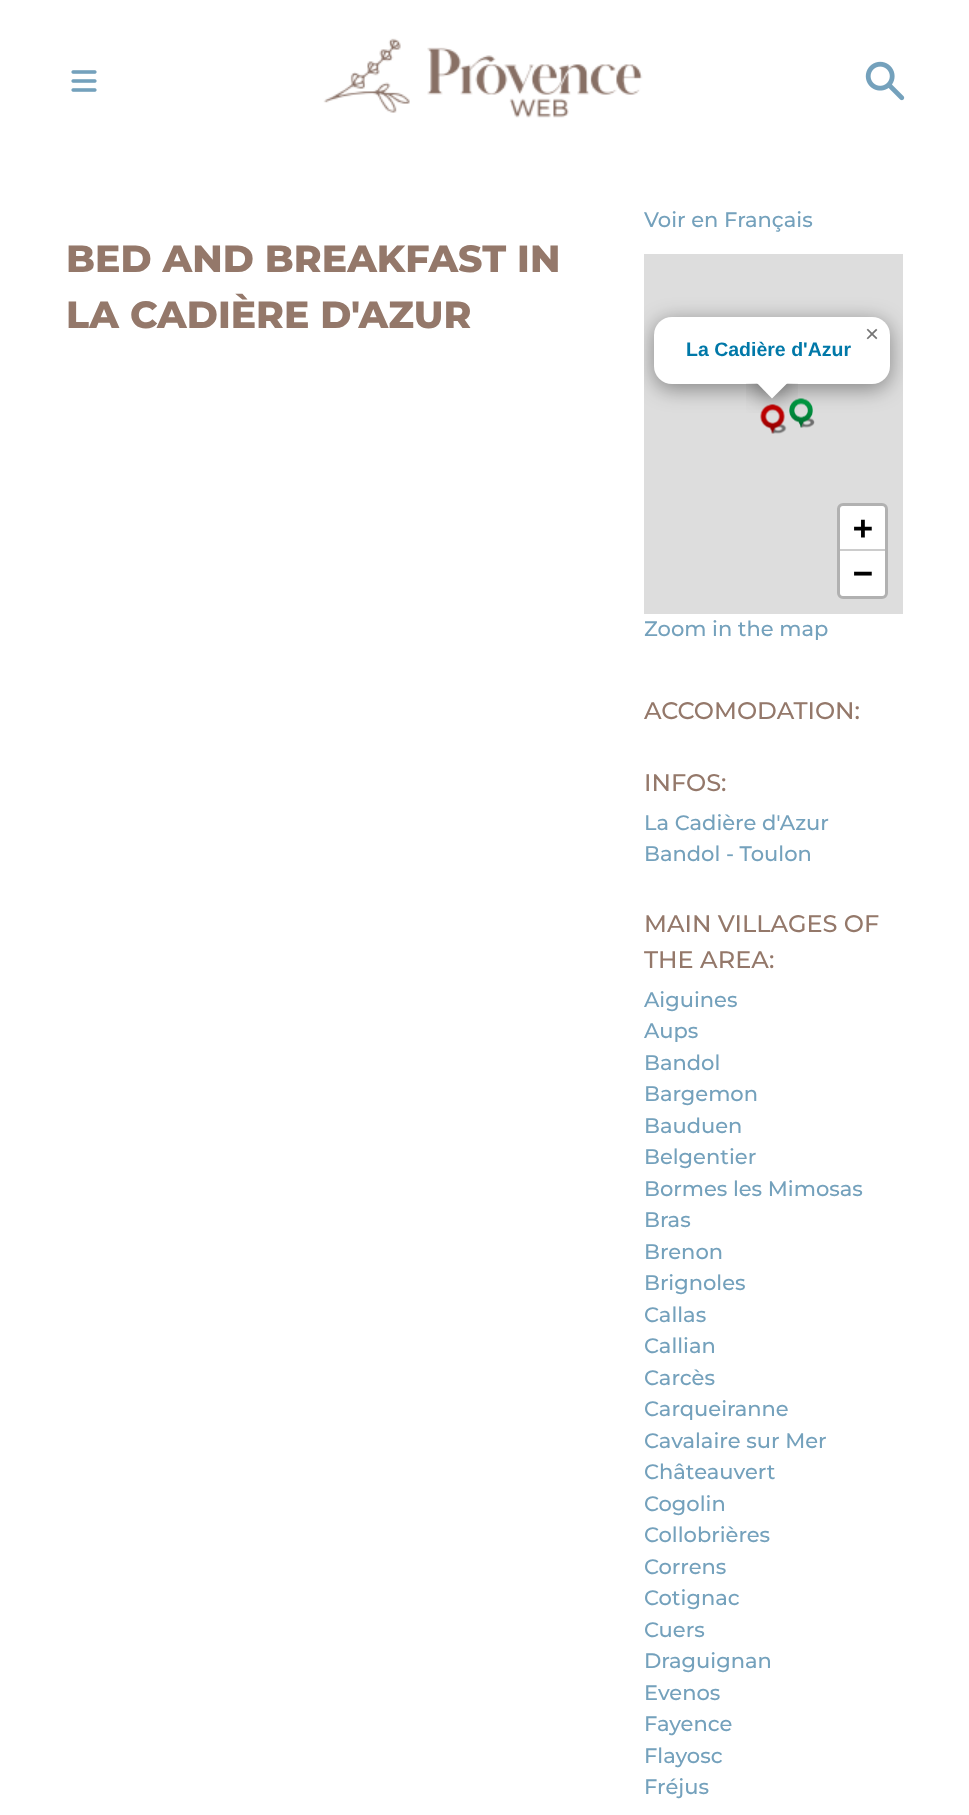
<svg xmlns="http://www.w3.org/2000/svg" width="969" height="1815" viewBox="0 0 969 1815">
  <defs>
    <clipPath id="clip1"><rect x="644" y="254" width="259" height="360"/></clipPath>
    <filter id="blur1" x="-50%" y="-200%" width="200%" height="500%"><feGaussianBlur stdDeviation="10.5"/></filter>
    <clipPath id="clip2"><rect x="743" y="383" width="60" height="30"/></clipPath>
    <clipPath id="clip3"><rect x="743" y="383" width="60" height="30"/></clipPath>
  </defs>
  <rect width="100%" height="100%" fill="#ffffff"/>
  <image x="71" y="70" width="26" height="22" href="img1.png"/>
  <image x="323" y="38" width="320" height="80" href="img2.png"/>
  <image x="865" y="61" width="40" height="40" href="img3.png"/>
  <text x="66" y="272" font-family="Montserrat" font-size="37.75" font-weight="800" fill="#94786a">BED AND BREAKFAST IN</text>
  <text x="66" y="328" font-family="Montserrat" font-size="37.75" font-weight="800" fill="#94786a">LA CADIÈRE D'AZUR</text>
  <text x="644" y="227" font-family="Montserrat" font-size="21" font-weight="500" fill="#74a1bc">Voir en Français</text>
  <rect x="644" y="254" width="259" height="360" fill="#dddddd"/>
  <image x="760" y="404" width="27" height="30" href="img4.png"/>
  <image x="789" y="398" width="26" height="30" href="img5.png"/>
  <g clip-path="url(#clip1)">
    <rect x="654" y="321" width="236" height="68" rx="18" fill="#000000" fill-opacity="0.4" filter="url(#blur1)"/>
  </g>
  <rect x="654" y="317" width="236" height="67" rx="18" fill="#ffffff"/>
  <text x="865" y="342" font-family="Liberation Sans" font-size="24" fill="#757575">×</text>
  <g clip-path="url(#clip2)">
    <rect x="759" y="372" width="26" height="26" fill="#000000" fill-opacity="0.4" filter="url(#blur1)"/>
  </g>
  <g clip-path="url(#clip3)">
    <path d="M772 362L790.5 380L772 398.5L754 380Z" fill="#ffffff"/>
  </g>
  <text x="686" y="356" font-family="Liberation Sans" font-size="19.5" font-weight="bold" fill="#0078a8">La Cadière d'Azur</text>
  <rect x="838.5" y="504.5" width="48" height="93" rx="4.5" fill="none" stroke="#b1b1b1" stroke-width="3"/>
  <path d="M843 506H882C883.5 506 885 507.5 885 509V549H840V509C840 507.5 841.5 506 843 506Z" fill="#ffffff"/>
  <rect x="840" y="549" width="45" height="2" fill="#cccccc"/>
  <text x="853" y="539" font-family="DejaVu Sans Mono" font-size="33" font-weight="bold" fill="#000000">+</text>
  <path d="M840 551H885V593C885 594.5 883.5 596 882 596H843C841.5 596 840 594.5 840 593Z" fill="#ffffff"/>
  <text x="853" y="584" font-family="DejaVu Sans Mono" font-size="33" font-weight="bold" fill="#000000">−</text>
  <text x="644" y="636" font-family="Montserrat" font-size="21" font-weight="500" fill="#74a1bc">Zoom in the map</text>
  <text x="644" y="719" font-family="Montserrat" font-size="24" font-weight="500" fill="#94786a">ACCOMODATION:</text>
  <text x="644" y="791" font-family="Montserrat" font-size="24" font-weight="500" fill="#94786a">INFOS:</text>
  <text x="644" y="830" font-family="Montserrat" font-size="21" font-weight="500" fill="#74a1bc">La Cadière d'Azur</text>
  <text x="644" y="861" font-family="Montserrat" font-size="21" font-weight="500" fill="#74a1bc">Bandol - Toulon</text>
  <text x="644" y="932" font-family="Montserrat" font-size="24" font-weight="500" fill="#94786a">MAIN VILLAGES OF</text>
  <text x="644" y="968" font-family="Montserrat" font-size="24" font-weight="500" fill="#94786a">THE AREA:</text>
  <text x="644" y="1007" font-family="Montserrat" font-size="21" font-weight="500" fill="#74a1bc">Aiguines</text>
  <text x="644" y="1038" font-family="Montserrat" font-size="21" font-weight="500" fill="#74a1bc">Aups</text>
  <text x="644" y="1070" font-family="Montserrat" font-size="21" font-weight="500" fill="#74a1bc">Bandol</text>
  <text x="644" y="1101" font-family="Montserrat" font-size="21" font-weight="500" fill="#74a1bc">Bargemon</text>
  <text x="644" y="1133" font-family="Montserrat" font-size="21" font-weight="500" fill="#74a1bc">Bauduen</text>
  <text x="644" y="1164" font-family="Montserrat" font-size="21" font-weight="500" fill="#74a1bc">Belgentier</text>
  <text x="644" y="1196" font-family="Montserrat" font-size="21" font-weight="500" fill="#74a1bc">Bormes les Mimosas</text>
  <text x="644" y="1227" font-family="Montserrat" font-size="21" font-weight="500" fill="#74a1bc">Bras</text>
  <text x="644" y="1259" font-family="Montserrat" font-size="21" font-weight="500" fill="#74a1bc">Brenon</text>
  <text x="644" y="1290" font-family="Montserrat" font-size="21" font-weight="500" fill="#74a1bc">Brignoles</text>
  <text x="644" y="1322" font-family="Montserrat" font-size="21" font-weight="500" fill="#74a1bc">Callas</text>
  <text x="644" y="1353" font-family="Montserrat" font-size="21" font-weight="500" fill="#74a1bc">Callian</text>
  <text x="644" y="1385" font-family="Montserrat" font-size="21" font-weight="500" fill="#74a1bc">Carcès</text>
  <text x="644" y="1416" font-family="Montserrat" font-size="21" font-weight="500" fill="#74a1bc">Carqueiranne</text>
  <text x="644" y="1448" font-family="Montserrat" font-size="21" font-weight="500" fill="#74a1bc">Cavalaire sur Mer</text>
  <text x="644" y="1479" font-family="Montserrat" font-size="21" font-weight="500" fill="#74a1bc">Châteauvert</text>
  <text x="644" y="1511" font-family="Montserrat" font-size="21" font-weight="500" fill="#74a1bc">Cogolin</text>
  <text x="644" y="1542" font-family="Montserrat" font-size="21" font-weight="500" fill="#74a1bc">Collobrières</text>
  <text x="644" y="1574" font-family="Montserrat" font-size="21" font-weight="500" fill="#74a1bc">Correns</text>
  <text x="644" y="1605" font-family="Montserrat" font-size="21" font-weight="500" fill="#74a1bc">Cotignac</text>
  <text x="644" y="1637" font-family="Montserrat" font-size="21" font-weight="500" fill="#74a1bc">Cuers</text>
  <text x="644" y="1668" font-family="Montserrat" font-size="21" font-weight="500" fill="#74a1bc">Draguignan</text>
  <text x="644" y="1700" font-family="Montserrat" font-size="21" font-weight="500" fill="#74a1bc">Evenos</text>
  <text x="644" y="1731" font-family="Montserrat" font-size="21" font-weight="500" fill="#74a1bc">Fayence</text>
  <text x="644" y="1763" font-family="Montserrat" font-size="21" font-weight="500" fill="#74a1bc">Flayosc</text>
  <text x="644" y="1794" font-family="Montserrat" font-size="21" font-weight="500" fill="#74a1bc">Fréjus</text>
</svg>
